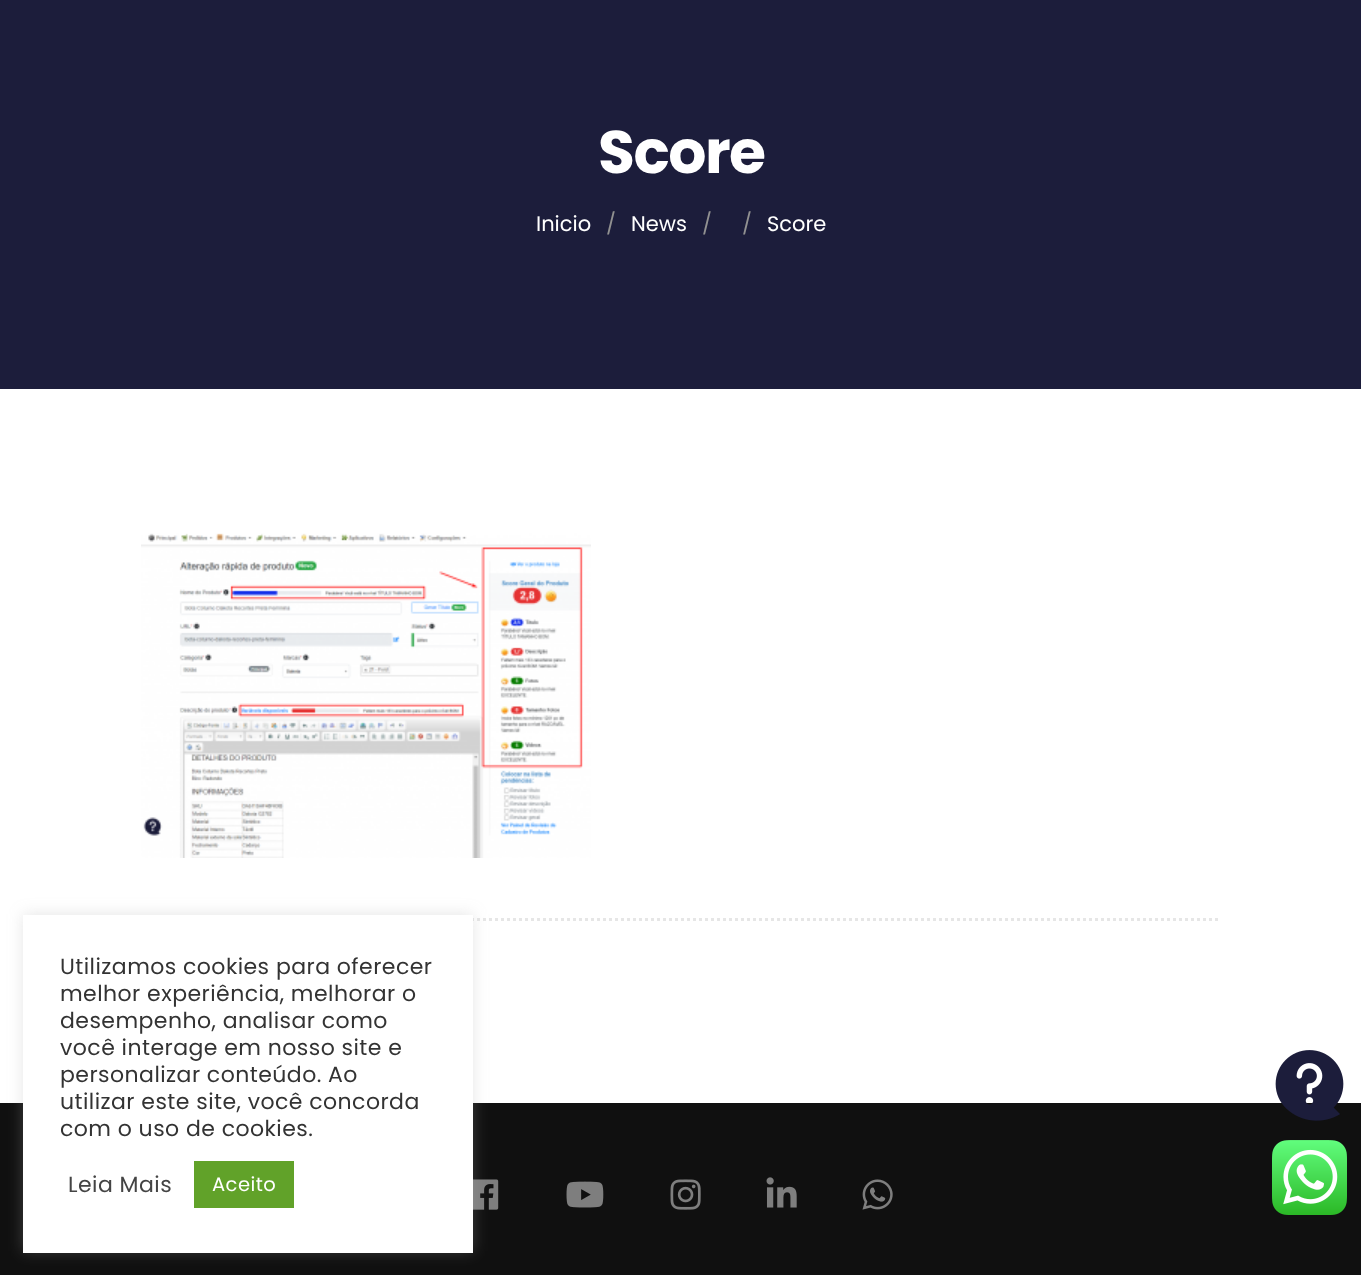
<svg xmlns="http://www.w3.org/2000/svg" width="1361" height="1275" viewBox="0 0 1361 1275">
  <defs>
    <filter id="blur1" x="-50%" y="-200%" width="200%" height="500%"><feGaussianBlur stdDeviation="7.5"/></filter>
  </defs>
  <rect width="100%" height="100%" fill="#ffffff"/>
  <rect x="0" y="0" width="1361" height="389" fill="#1c1d3b"/>
  <text x="598" y="173" font-family="Poppins" font-size="60" font-weight="bold" letter-spacing="-1.5" fill="#ffffff">Score</text>
  <text x="536" y="231" font-family="Poppins" font-size="21" fill="#ffffff">Inicio</text>
  <text x="606" y="231" font-family="Poppins" font-size="21" fill="#919191">/</text>
  <text x="631" y="231" font-family="Poppins" font-size="21" fill="#ffffff">News</text>
  <text x="702" y="231" font-family="Poppins" font-size="21" fill="#919191">/</text>
  <text x="742" y="231" font-family="Poppins" font-size="21" fill="#919191">/</text>
  <text x="767" y="231" font-family="Poppins" font-size="21" fill="#ffffff">Score</text>
  <path d="M141 919.5H1221" fill="none" stroke="#e6e6e6" stroke-width="3" stroke-dasharray="3 3"/>
  <image x="141" y="533" width="450" height="325" href="img1.png"/>
  <rect x="0" y="1103" width="1361" height="172" fill="#101010"/>
  <image x="473" y="1179" width="26" height="31" href="img3.png"/>
  <rect x="23" y="914" width="450" height="337" fill="#acabab" fill-opacity="0.3" filter="url(#blur1)"/>
  <rect x="23" y="915" width="450" height="338" fill="#ffffff"/>
  <text x="60" y="974" font-family="Poppins" font-size="22" letter-spacing="0.45" fill="#333333">Utilizamos cookies para oferecer</text>
  <text x="60" y="1001" font-family="Poppins" font-size="22" letter-spacing="0.45" fill="#333333">melhor experiência, melhorar o</text>
  <text x="60" y="1028" font-family="Poppins" font-size="22" letter-spacing="0.45" fill="#333333">desempenho, analisar como</text>
  <text x="60" y="1055" font-family="Poppins" font-size="22" letter-spacing="0.45" fill="#333333">você interage em nosso site e</text>
  <text x="60" y="1082" font-family="Poppins" font-size="22" letter-spacing="0.45" fill="#333333">personalizar conteúdo. Ao</text>
  <text x="60" y="1109" font-family="Poppins" font-size="22" letter-spacing="0.45" fill="#333333">utilizar este site, você concorda</text>
  <text x="60" y="1136" font-family="Poppins" font-size="22" letter-spacing="0.45" fill="#333333">com o uso de cookies.</text>
  <text x="68" y="1192" font-family="Poppins" font-size="22" letter-spacing="0.45" fill="#444444">Leia Mais</text>
  <rect x="194" y="1161" width="100" height="47" fill="#61a229"/>
  <text x="212" y="1191" font-family="Poppins" font-size="19.5" letter-spacing="0.45" fill="#ffffff">Aceito</text>
  <image x="1275" y="1050" width="69" height="71" href="img2.png"/>
  <image x="566" y="1181" width="38" height="27" href="img4.png"/>
  <image x="670" y="1179" width="31" height="31" href="img5.png"/>
  <image x="766" y="1177" width="31" height="31" href="img6.png"/>
  <image x="862" y="1179" width="31" height="31" href="img7.png"/>
  <image x="1272" y="1140" width="75" height="75" href="img8.png"/>
</svg>
